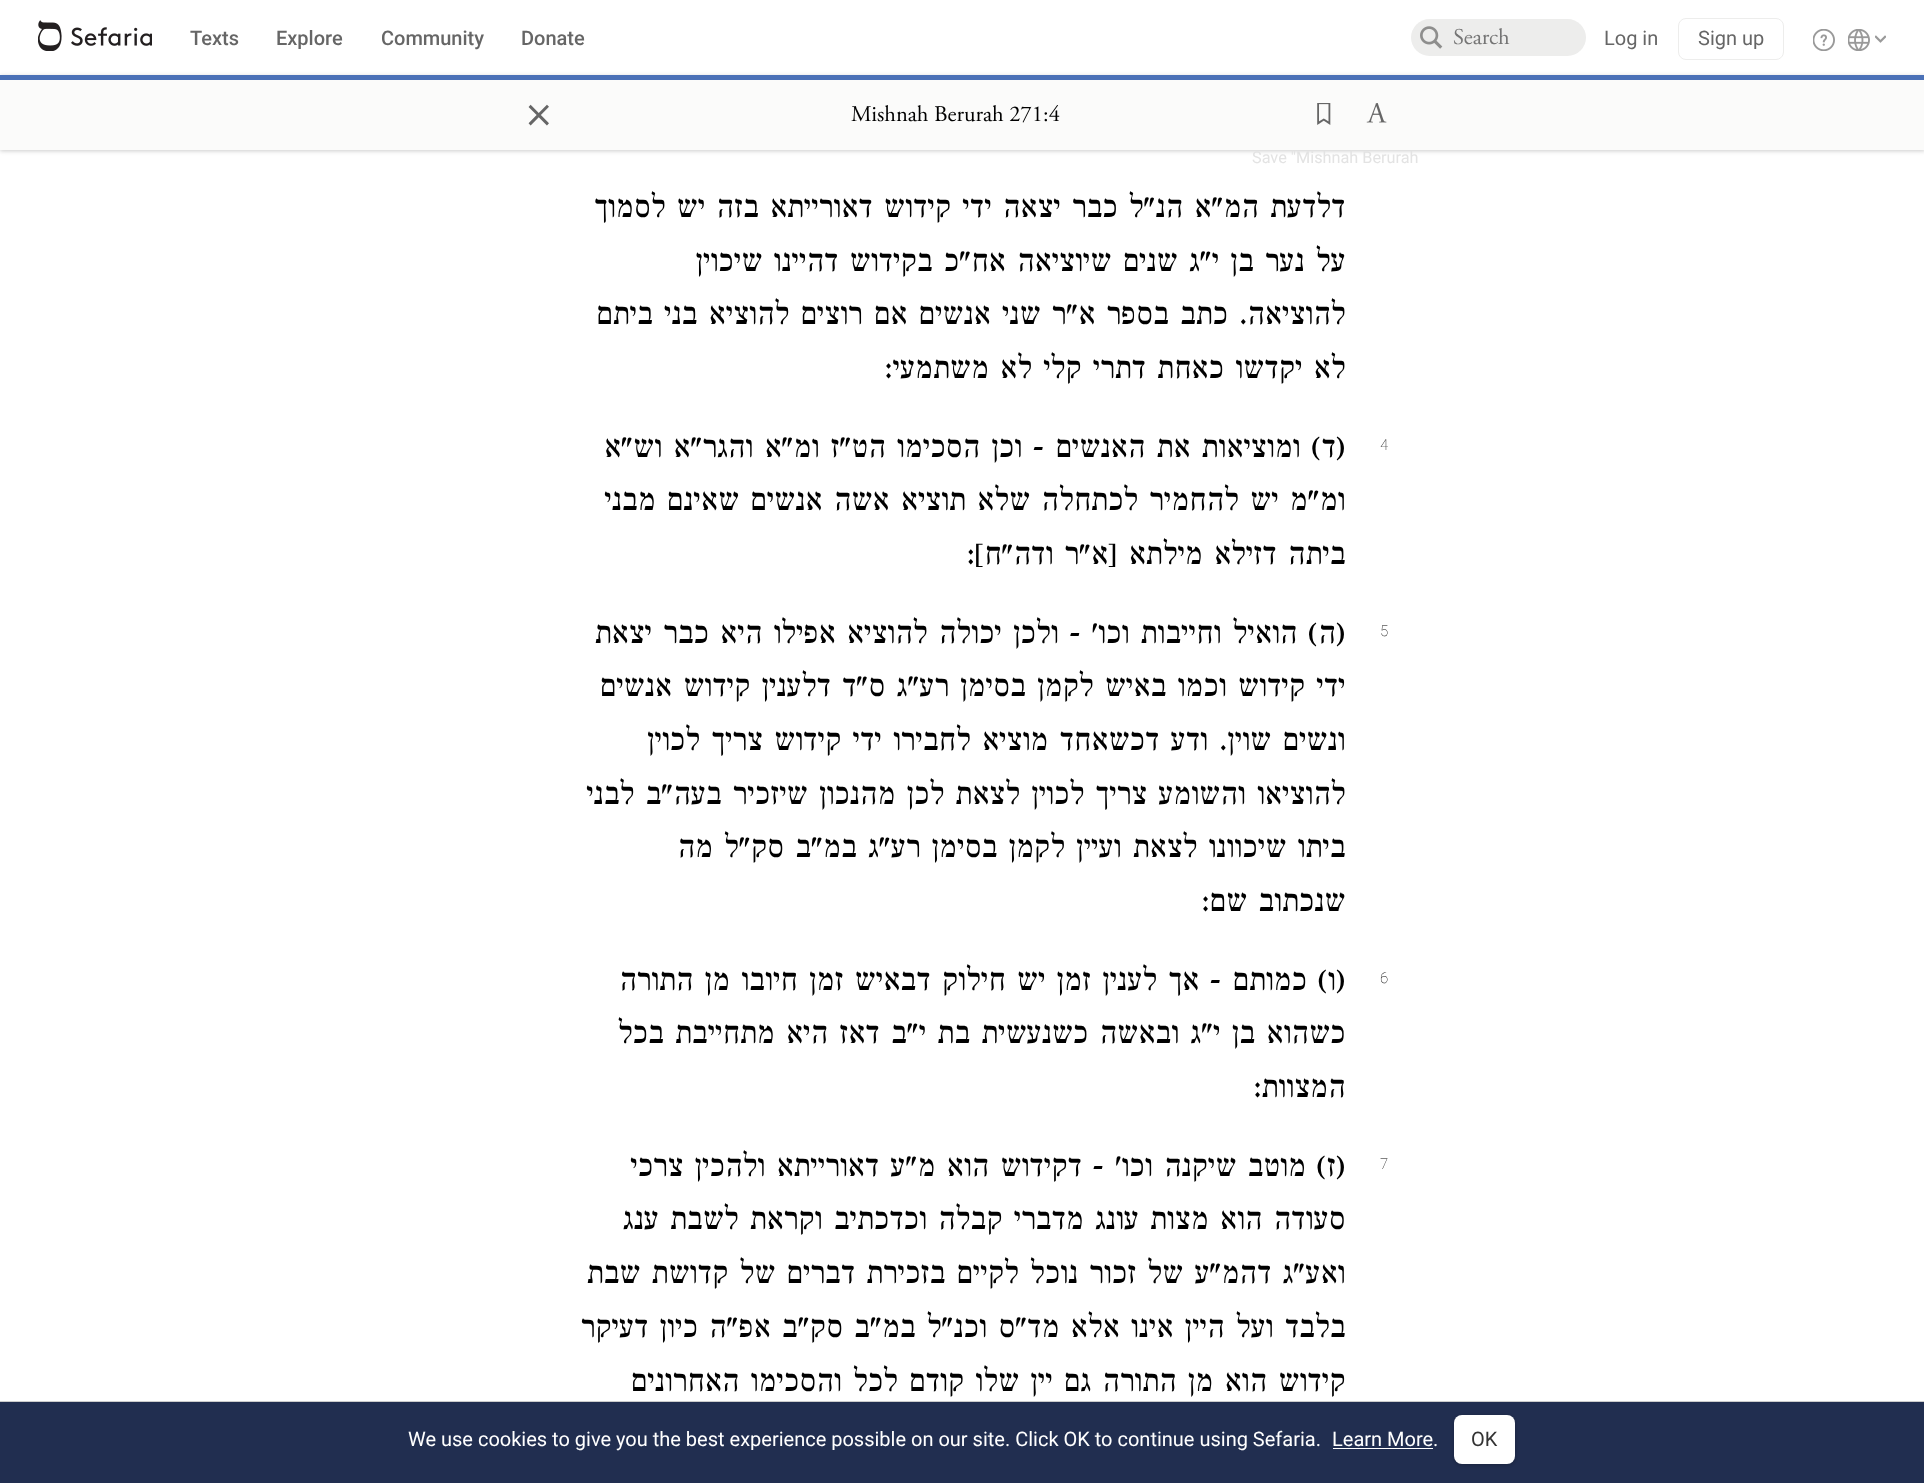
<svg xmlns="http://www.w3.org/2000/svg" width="1924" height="1483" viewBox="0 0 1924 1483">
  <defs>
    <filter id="blur1" x="-50%" y="-200%" width="200%" height="500%"><feGaussianBlur stdDeviation="2"/></filter>
  </defs>
  <rect width="100%" height="100%" fill="#ffffff"/>
  <image x="1875" y="35" width="11" height="8" href="img1.png"/>
  <image x="1848" y="29" width="22" height="22" href="img2.png"/>
  <image x="1813" y="29" width="22" height="22" href="img3.png"/>
  <rect x="1678.5" y="18.5" width="105" height="41" rx="7.5" fill="none" stroke="#ededec"/>
  <text x="1698" y="45" font-family="Roboto" font-size="20" fill="#666666">Sign up</text>
  <text x="1604" y="45" font-family="Roboto" font-size="20" fill="#666666">Log in</text>
  <rect x="1411" y="19" width="175" height="37" rx="18.5" fill="#ededec"/>
  <text x="1453" y="44" font-family="Adobe Garamond" font-size="22.5" fill="#757575">Search</text>
  <image x="1420" y="26" width="23" height="23" href="img4.png"/>
  <text x="521" y="45" font-family="Roboto" font-size="20" font-weight="500" fill="#666666">Donate</text>
  <text x="381" y="45" font-family="Roboto" font-size="20" font-weight="500" fill="#666666">Community</text>
  <text x="276" y="45" font-family="Roboto" font-size="20" font-weight="500" fill="#666666">Explore</text>
  <text x="190" y="45" font-family="Roboto" font-size="20" font-weight="500" fill="#666666">Texts</text>
  <image x="38" y="20" width="114" height="31" href="img5.png"/>
  <rect x="0" y="76" width="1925" height="75" fill="#000000" fill-opacity="0.2" filter="url(#blur1)"/>
  <rect x="0" y="75" width="1924" height="5" fill="#4b71b7"/>
  <rect x="0" y="80" width="1924" height="70" fill="#fbfbfa"/>
  <text x="851" y="121" font-family="Adobe Garamond" font-size="22.5" fill="#000000">Mishnah Berurah 271:4</text>
  <text x="525" y="126" font-family="Adobe Garamond" font-size="55" fill="#666666">×</text>
  <image x="1366" y="103" width="21" height="20" href="img6.png"/>
  <image x="1317" y="103" width="14" height="22" href="img7.png"/>
  <text x="1252" y="163" font-family="Roboto" font-size="16.25" fill="#e3e3e3">Save "Mishnah Berurah</text>
  <text x="1345" y="217" font-family="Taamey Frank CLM" font-size="33.55" font-weight="500" direction="rtl" fill="#000000">דלדעת המ"א הנ"ל כבר יצאה ידי קידוש דאורייתא בזה יש לסמוך</text>
  <text x="1345" y="271" font-family="Taamey Frank CLM" font-size="33.55" font-weight="500" direction="rtl" fill="#000000">על נער בן י"ג שנים שיוציאה אח"כ בקידוש דהיינו שיכוין</text>
  <text x="1345" y="324" font-family="Taamey Frank CLM" font-size="33.55" font-weight="500" direction="rtl" fill="#000000">להוציאה. כתב בספר א"ר שני אנשים אם רוצים להוציא בני ביתם</text>
  <text x="1345" y="378" font-family="Taamey Frank CLM" font-size="33.55" font-weight="500" direction="rtl" fill="#000000">לא יקדשו כאחת דתרי קלי לא משתמעי:</text>
  <text x="1380" y="450" font-family="Roboto" font-size="15" font-weight="100" fill="#000000">4</text>
  <text x="1345" y="457" font-family="Taamey Frank CLM" font-size="33.55" font-weight="500" direction="rtl" fill="#000000">(ד) ומוציאות את האנשים - וכן הסכימו הט"ז ומ"א והגר"א וש"א</text>
  <text x="1345" y="510" font-family="Taamey Frank CLM" font-size="33.55" font-weight="500" direction="rtl" fill="#000000">ומ"מ יש להחמיר לכתחלה שלא תוציא אשה אנשים שאינם מבני</text>
  <text x="1345" y="564" font-family="Taamey Frank CLM" font-size="33.55" font-weight="500" direction="rtl" fill="#000000">ביתה דזילא מילתא [א"ר ודה"ח]:</text>
  <text x="1380" y="636" font-family="Roboto" font-size="15" font-weight="100" fill="#000000">5</text>
  <text x="1345" y="643" font-family="Taamey Frank CLM" font-size="33.55" font-weight="500" direction="rtl" fill="#000000">(ה) הואיל וחייבות וכו' - ולכן יכולה להוציא אפילו היא כבר יצאת</text>
  <text x="1345" y="696" font-family="Taamey Frank CLM" font-size="33.55" font-weight="500" direction="rtl" fill="#000000">ידי קידוש וכמו באיש לקמן בסימן רע"ג ס"ד דלענין קידוש אנשים</text>
  <text x="1345" y="750" font-family="Taamey Frank CLM" font-size="33.55" font-weight="500" direction="rtl" fill="#000000">ונשים שוין. ודע דכשאחד מוציא לחבירו ידי קידוש צריך לכוין</text>
  <text x="1345" y="804" font-family="Taamey Frank CLM" font-size="33.55" font-weight="500" direction="rtl" fill="#000000">להוציאו והשומע צריך לכוין לצאת לכן מהנכון שיזכיר בעה"ב לבני</text>
  <text x="1345" y="857" font-family="Taamey Frank CLM" font-size="33.55" font-weight="500" direction="rtl" fill="#000000">ביתו שיכוונו לצאת ועיין לקמן בסימן רע"ג במ"ב סק"ל מה</text>
  <text x="1345" y="911" font-family="Taamey Frank CLM" font-size="33.55" font-weight="500" direction="rtl" fill="#000000">שנכתוב שם:</text>
  <text x="1380" y="983" font-family="Roboto" font-size="15" font-weight="100" fill="#000000">6</text>
  <text x="1345" y="990" font-family="Taamey Frank CLM" font-size="33.55" font-weight="500" direction="rtl" fill="#000000">(ו) כמותם - אך לענין זמן יש חילוק דבאיש זמן חיובו מן התורה</text>
  <text x="1345" y="1043" font-family="Taamey Frank CLM" font-size="33.55" font-weight="500" direction="rtl" fill="#000000">כשהוא בן י"ג ובאשה כשנעשית בת י"ב דאז היא מתחייבת בכל</text>
  <text x="1345" y="1097" font-family="Taamey Frank CLM" font-size="33.55" font-weight="500" direction="rtl" fill="#000000">המצוות:</text>
  <text x="1380" y="1169" font-family="Roboto" font-size="15" font-weight="100" fill="#000000">7</text>
  <text x="1345" y="1176" font-family="Taamey Frank CLM" font-size="33.55" font-weight="500" direction="rtl" fill="#000000">(ז) מוטב שיקנה וכו' - דקידוש הוא מ"ע דאורייתא ולהכין צרכי</text>
  <text x="1345" y="1229" font-family="Taamey Frank CLM" font-size="33.55" font-weight="500" direction="rtl" fill="#000000">סעודה הוא מצות עונג מדברי קבלה וכדכתיב וקראת לשבת ענג</text>
  <text x="1345" y="1283" font-family="Taamey Frank CLM" font-size="33.55" font-weight="500" direction="rtl" fill="#000000">ואע"ג דהמ"ע של זכור נוכל לקיים בזכירת דברים של קדושת שבת</text>
  <text x="1345" y="1337" font-family="Taamey Frank CLM" font-size="33.55" font-weight="500" direction="rtl" fill="#000000">בלבד ועל היין אינו אלא מד"ס וכנ"ל במ"ב סק"ב אפ"ה כיון דעיקר</text>
  <text x="1345" y="1391" font-family="Taamey Frank CLM" font-size="33.55" font-weight="500" direction="rtl" fill="#000000">קידוש הוא מן התורה גם יין שלו קודם לכל והסכימו האחרונים</text>
  <rect x="0" y="1402" width="1924" height="81" fill="#212e50"/>
  <rect x="0" y="1401" width="1924" height="1" fill="#cccccc"/>
  <rect x="1454" y="1416" width="61" height="49" rx="8" fill="#000000" fill-opacity="0.25" filter="url(#blur1)"/>
  <rect x="1454" y="1415" width="61" height="49" rx="8" fill="#ffffff"/>
  <text x="1471" y="1446" font-family="Roboto" font-size="20" fill="#333333">OK</text>
  <text x="1332" y="1446" font-family="Roboto" font-size="20" fill="#ffffff">Learn More.</text>
  <rect x="1333" y="1448" width="100" height="1" fill="#ffffff"/>
  <text x="408" y="1446" font-family="Roboto" font-size="20" fill="#ffffff">We use cookies to give you the best experience possible on our site. Click OK to continue using Sefaria.</text>
</svg>
